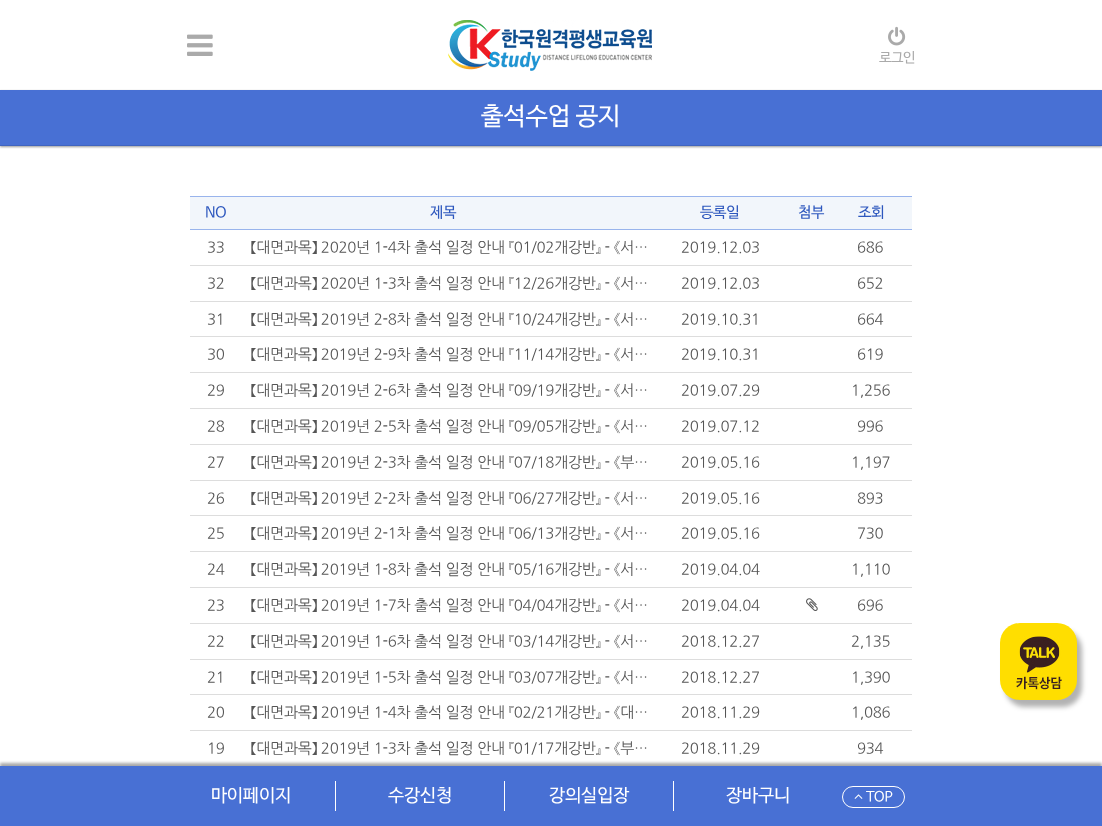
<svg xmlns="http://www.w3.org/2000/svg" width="1102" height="826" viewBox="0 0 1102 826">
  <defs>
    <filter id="blur1" x="-50%" y="-200%" width="200%" height="500%"><feGaussianBlur stdDeviation="1"/></filter>
    <filter id="blur2" x="-50%" y="-200%" width="200%" height="500%"><feGaussianBlur stdDeviation="2.5"/></filter>
    <filter id="blur3" x="-50%" y="-200%" width="200%" height="500%"><feGaussianBlur stdDeviation="1.5"/></filter>
  </defs>
  <rect width="100%" height="100%" fill="#ffffff"/>
  <image x="187" y="34" width="26" height="22" href="img1.png"/>
  <image x="448" y="20" width="204" height="51" href="img2.png"/>
  <image x="888" y="26" width="18" height="20" href="img3.png"/>
  <text x="879" y="62" font-family="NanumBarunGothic" font-size="14" letter-spacing="-0.5" fill="#aaaaaa">로그인</text>
  <rect x="0" y="91" width="1102" height="56" fill="#000000" fill-opacity="0.4" filter="url(#blur1)"/>
  <rect x="0" y="90" width="1102" height="55" fill="#4870d4"/>
  <rect x="0" y="145" width="1102" height="1" fill="#4165bf"/>
  <text x="481" y="124" font-family="NanumBarunGothic" font-size="25" fill="#ffffff">출석수업 공지</text>
  <rect x="190" y="197" width="722" height="32" fill="#f2f6fb"/>
  <text x="205" y="217" font-family="NanumBarunGothic" font-size="15" letter-spacing="-0.3" fill="#2d57be">NO</text>
  <text x="430" y="217" font-family="NanumBarunGothic" font-size="15" letter-spacing="-0.3" fill="#2d57be">제목</text>
  <text x="700" y="217" font-family="NanumBarunGothic" font-size="15" letter-spacing="-0.3" fill="#2d57be">등록일</text>
  <text x="798" y="217" font-family="NanumBarunGothic" font-size="15" letter-spacing="-0.3" fill="#2d57be">첨부</text>
  <rect x="190" y="196" width="722" height="1" fill="#99b4ec"/>
  <rect x="190" y="229" width="722" height="1" fill="#99b4ec"/>
  <text x="858" y="217" font-family="NanumBarunGothic" font-size="15" letter-spacing="-0.3" fill="#2d57be">조회</text>
  <text x="207" y="252" font-family="NanumGothic" font-size="15" letter-spacing="-0.3" fill="#555555">33</text>
  <text x="251" y="252" font-family="NanumGothic" font-size="15" letter-spacing="-0.3" fill="#555555">【대면과목】 2020년 1-4차 출석 일정 안내 『01/02개강반』 - 《서…</text>
  <text x="681" y="252" font-family="NanumGothic" font-size="15" letter-spacing="-0.3" fill="#555555">2019.12.03</text>
  <rect x="190" y="265" width="722" height="1" fill="#dddddd"/>
  <text x="857" y="252" font-family="NanumGothic" font-size="15" letter-spacing="-0.3" fill="#555555">686</text>
  <text x="207" y="288" font-family="NanumGothic" font-size="15" letter-spacing="-0.3" fill="#555555">32</text>
  <text x="251" y="288" font-family="NanumGothic" font-size="15" letter-spacing="-0.3" fill="#555555">【대면과목】 2020년 1-3차 출석 일정 안내 『12/26개강반』 - 《서…</text>
  <text x="681" y="288" font-family="NanumGothic" font-size="15" letter-spacing="-0.3" fill="#555555">2019.12.03</text>
  <rect x="190" y="301" width="722" height="1" fill="#dddddd"/>
  <text x="857" y="288" font-family="NanumGothic" font-size="15" letter-spacing="-0.3" fill="#555555">652</text>
  <text x="207" y="324" font-family="NanumGothic" font-size="15" letter-spacing="-0.3" fill="#555555">31</text>
  <text x="251" y="324" font-family="NanumGothic" font-size="15" letter-spacing="-0.3" fill="#555555">【대면과목】 2019년 2-8차 출석 일정 안내 『10/24개강반』 - 《서…</text>
  <text x="681" y="324" font-family="NanumGothic" font-size="15" letter-spacing="-0.3" fill="#555555">2019.10.31</text>
  <rect x="190" y="336" width="722" height="1" fill="#dddddd"/>
  <text x="857" y="324" font-family="NanumGothic" font-size="15" letter-spacing="-0.3" fill="#555555">664</text>
  <text x="207" y="359" font-family="NanumGothic" font-size="15" letter-spacing="-0.3" fill="#555555">30</text>
  <text x="251" y="359" font-family="NanumGothic" font-size="15" letter-spacing="-0.3" fill="#555555">【대면과목】 2019년 2-9차 출석 일정 안내 『11/14개강반』 - 《서…</text>
  <text x="681" y="359" font-family="NanumGothic" font-size="15" letter-spacing="-0.3" fill="#555555">2019.10.31</text>
  <rect x="190" y="372" width="722" height="1" fill="#dddddd"/>
  <text x="857" y="359" font-family="NanumGothic" font-size="15" letter-spacing="-0.3" fill="#555555">619</text>
  <text x="207" y="395" font-family="NanumGothic" font-size="15" letter-spacing="-0.3" fill="#555555">29</text>
  <text x="251" y="395" font-family="NanumGothic" font-size="15" letter-spacing="-0.3" fill="#555555">【대면과목】 2019년 2-6차 출석 일정 안내 『09/19개강반』 - 《서…</text>
  <text x="681" y="395" font-family="NanumGothic" font-size="15" letter-spacing="-0.3" fill="#555555">2019.07.29</text>
  <rect x="190" y="408" width="722" height="1" fill="#dddddd"/>
  <text x="851" y="395" font-family="NanumGothic" font-size="15" letter-spacing="-0.3" fill="#555555">1,256</text>
  <text x="207" y="431" font-family="NanumGothic" font-size="15" letter-spacing="-0.3" fill="#555555">28</text>
  <text x="251" y="431" font-family="NanumGothic" font-size="15" letter-spacing="-0.3" fill="#555555">【대면과목】 2019년 2-5차 출석 일정 안내 『09/05개강반』 - 《서…</text>
  <text x="681" y="431" font-family="NanumGothic" font-size="15" letter-spacing="-0.3" fill="#555555">2019.07.12</text>
  <rect x="190" y="444" width="722" height="1" fill="#dddddd"/>
  <text x="857" y="431" font-family="NanumGothic" font-size="15" letter-spacing="-0.3" fill="#555555">996</text>
  <text x="207" y="467" font-family="NanumGothic" font-size="15" letter-spacing="-0.3" fill="#555555">27</text>
  <text x="251" y="467" font-family="NanumGothic" font-size="15" letter-spacing="-0.3" fill="#555555">【대면과목】 2019년 2-3차 출석 일정 안내 『07/18개강반』 - 《부…</text>
  <text x="681" y="467" font-family="NanumGothic" font-size="15" letter-spacing="-0.3" fill="#555555">2019.05.16</text>
  <rect x="190" y="480" width="722" height="1" fill="#dddddd"/>
  <text x="851" y="467" font-family="NanumGothic" font-size="15" letter-spacing="-0.3" fill="#555555">1,197</text>
  <text x="207" y="503" font-family="NanumGothic" font-size="15" letter-spacing="-0.3" fill="#555555">26</text>
  <text x="251" y="503" font-family="NanumGothic" font-size="15" letter-spacing="-0.3" fill="#555555">【대면과목】 2019년 2-2차 출석 일정 안내 『06/27개강반』 - 《서…</text>
  <text x="681" y="503" font-family="NanumGothic" font-size="15" letter-spacing="-0.3" fill="#555555">2019.05.16</text>
  <rect x="190" y="515" width="722" height="1" fill="#dddddd"/>
  <text x="857" y="503" font-family="NanumGothic" font-size="15" letter-spacing="-0.3" fill="#555555">893</text>
  <text x="207" y="538" font-family="NanumGothic" font-size="15" letter-spacing="-0.3" fill="#555555">25</text>
  <text x="251" y="538" font-family="NanumGothic" font-size="15" letter-spacing="-0.3" fill="#555555">【대면과목】 2019년 2-1차 출석 일정 안내 『06/13개강반』 - 《서…</text>
  <text x="681" y="538" font-family="NanumGothic" font-size="15" letter-spacing="-0.3" fill="#555555">2019.05.16</text>
  <rect x="190" y="551" width="722" height="1" fill="#dddddd"/>
  <text x="857" y="538" font-family="NanumGothic" font-size="15" letter-spacing="-0.3" fill="#555555">730</text>
  <text x="207" y="574" font-family="NanumGothic" font-size="15" letter-spacing="-0.3" fill="#555555">24</text>
  <text x="251" y="574" font-family="NanumGothic" font-size="15" letter-spacing="-0.3" fill="#555555">【대면과목】 2019년 1-8차 출석 일정 안내 『05/16개강반』 - 《서…</text>
  <text x="681" y="574" font-family="NanumGothic" font-size="15" letter-spacing="-0.3" fill="#555555">2019.04.04</text>
  <rect x="190" y="587" width="722" height="1" fill="#dddddd"/>
  <text x="851" y="574" font-family="NanumGothic" font-size="15" letter-spacing="-0.3" fill="#555555">1,110</text>
  <text x="207" y="610" font-family="NanumGothic" font-size="15" letter-spacing="-0.3" fill="#555555">23</text>
  <text x="251" y="610" font-family="NanumGothic" font-size="15" letter-spacing="-0.3" fill="#555555">【대면과목】 2019년 1-7차 출석 일정 안내 『04/04개강반』 - 《서…</text>
  <text x="681" y="610" font-family="NanumGothic" font-size="15" letter-spacing="-0.3" fill="#555555">2019.04.04</text>
  <image x="806" y="598" width="12" height="13" href="img4.png"/>
  <rect x="190" y="623" width="722" height="1" fill="#dddddd"/>
  <text x="857" y="610" font-family="NanumGothic" font-size="15" letter-spacing="-0.3" fill="#555555">696</text>
  <text x="207" y="646" font-family="NanumGothic" font-size="15" letter-spacing="-0.3" fill="#555555">22</text>
  <text x="251" y="646" font-family="NanumGothic" font-size="15" letter-spacing="-0.3" fill="#555555">【대면과목】 2019년 1-6차 출석 일정 안내 『03/14개강반』 - 《서…</text>
  <text x="681" y="646" font-family="NanumGothic" font-size="15" letter-spacing="-0.3" fill="#555555">2018.12.27</text>
  <rect x="190" y="659" width="722" height="1" fill="#dddddd"/>
  <text x="851" y="646" font-family="NanumGothic" font-size="15" letter-spacing="-0.3" fill="#555555">2,135</text>
  <text x="207" y="682" font-family="NanumGothic" font-size="15" letter-spacing="-0.3" fill="#555555">21</text>
  <text x="251" y="682" font-family="NanumGothic" font-size="15" letter-spacing="-0.3" fill="#555555">【대면과목】 2019년 1-5차 출석 일정 안내 『03/07개강반』 - 《서…</text>
  <text x="681" y="682" font-family="NanumGothic" font-size="15" letter-spacing="-0.3" fill="#555555">2018.12.27</text>
  <rect x="190" y="694" width="722" height="1" fill="#dddddd"/>
  <text x="851" y="682" font-family="NanumGothic" font-size="15" letter-spacing="-0.3" fill="#555555">1,390</text>
  <text x="207" y="717" font-family="NanumGothic" font-size="15" letter-spacing="-0.3" fill="#555555">20</text>
  <text x="251" y="717" font-family="NanumGothic" font-size="15" letter-spacing="-0.3" fill="#555555">【대면과목】 2019년 1-4차 출석 일정 안내 『02/21개강반』 - 《대…</text>
  <text x="681" y="717" font-family="NanumGothic" font-size="15" letter-spacing="-0.3" fill="#555555">2018.11.29</text>
  <rect x="190" y="730" width="722" height="1" fill="#dddddd"/>
  <text x="851" y="717" font-family="NanumGothic" font-size="15" letter-spacing="-0.3" fill="#555555">1,086</text>
  <text x="207" y="753" font-family="NanumGothic" font-size="15" letter-spacing="-0.3" fill="#555555">19</text>
  <text x="251" y="753" font-family="NanumGothic" font-size="15" letter-spacing="-0.3" fill="#555555">【대면과목】 2019년 1-3차 출석 일정 안내 『01/17개강반』 - 《부…</text>
  <text x="681" y="753" font-family="NanumGothic" font-size="15" letter-spacing="-0.3" fill="#555555">2018.11.29</text>
  <text x="857" y="753" font-family="NanumGothic" font-size="15" letter-spacing="-0.3" fill="#555555">934</text>
  <rect x="1005" y="630" width="77" height="77" rx="20" fill="#000000" fill-opacity="0.3" filter="url(#blur2)"/>
  <rect x="1000" y="623" width="77" height="77" rx="20" fill="#ffde00"/>
  <image x="1016" y="636" width="46" height="54" href="img5.png"/>
  <rect x="0" y="763" width="1102" height="60" fill="#000000" fill-opacity="0.34" filter="url(#blur3)"/>
  <rect x="0" y="766" width="1102" height="60" fill="#4870d4"/>
  <rect x="335" y="781" width="1" height="30" fill="#ffffff"/>
  <text x="211" y="801" font-family="NanumBarunGothic" font-size="18" fill="#ffffff">마이페이지</text>
  <rect x="504" y="781" width="1" height="30" fill="#ffffff"/>
  <text x="388" y="801" font-family="NanumBarunGothic" font-size="18" fill="#ffffff">수강신청</text>
  <rect x="673" y="781" width="1" height="30" fill="#ffffff"/>
  <text x="549" y="801" font-family="NanumBarunGothic" font-size="18" fill="#ffffff">강의실입장</text>
  <text x="726" y="801" font-family="NanumBarunGothic" font-size="18" fill="#ffffff">장바구니</text>
  <rect x="842.5" y="786.5" width="62" height="21" rx="10.5" fill="none" stroke="#ffffff"/>
  <image x="854" y="794" width="9" height="5" href="img6.png"/>
  <text x="866" y="801" font-family="NanumBarunGothic" font-size="14" fill="#ffffff">TOP</text>
</svg>
